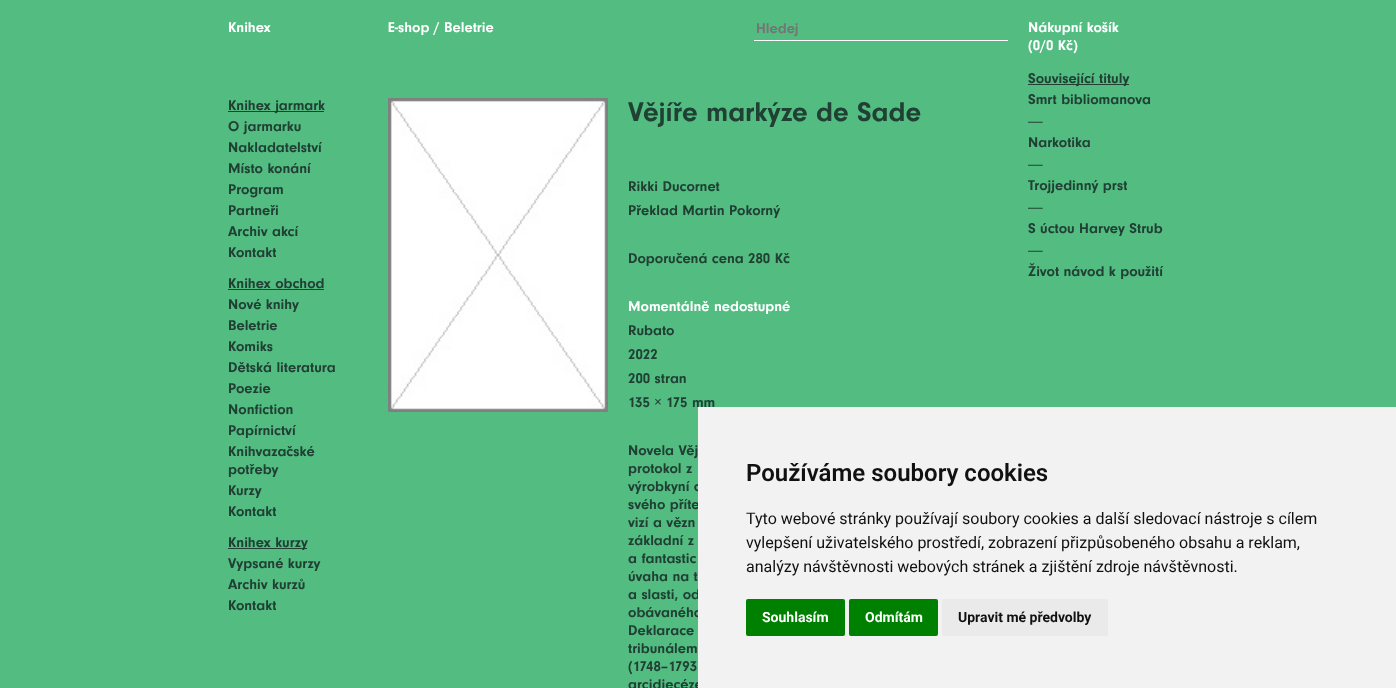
<svg xmlns="http://www.w3.org/2000/svg" width="1396" height="688" viewBox="0 0 1396 688">
  <rect width="100%" height="100%" fill="#53bc81"/>
  <text x="228" y="32" font-family="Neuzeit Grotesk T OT" font-size="14.75" font-weight="bold" fill="#ffffff">Knihex</text>
  <rect x="228" y="111" width="96" height="1" fill="#204034"/>
  <text x="228" y="110" font-family="Neuzeit Grotesk T OT" font-size="14.75" font-weight="bold" fill="#204034">Knihex jarmark</text>
  <text x="228" y="131" font-family="Neuzeit Grotesk T OT" font-size="14.75" font-weight="bold" fill="#204034">O jarmarku</text>
  <text x="228" y="152" font-family="Neuzeit Grotesk T OT" font-size="14.75" font-weight="bold" fill="#204034">Nakladatelství</text>
  <text x="228" y="173" font-family="Neuzeit Grotesk T OT" font-size="14.75" font-weight="bold" fill="#204034">Místo konání</text>
  <text x="228" y="194" font-family="Neuzeit Grotesk T OT" font-size="14.75" font-weight="bold" fill="#204034">Program</text>
  <text x="228" y="215" font-family="Neuzeit Grotesk T OT" font-size="14.75" font-weight="bold" fill="#204034">Partneři</text>
  <text x="228" y="236" font-family="Neuzeit Grotesk T OT" font-size="14.75" font-weight="bold" fill="#204034">Archiv akcí</text>
  <text x="228" y="257" font-family="Neuzeit Grotesk T OT" font-size="14.75" font-weight="bold" fill="#204034">Kontakt</text>
  <text x="228" y="288" font-family="Neuzeit Grotesk T OT" font-size="14.75" font-weight="bold" fill="#204034">Knihex obchod</text>
  <rect x="228" y="289" width="96" height="1" fill="#204034"/>
  <text x="228" y="309" font-family="Neuzeit Grotesk T OT" font-size="14.75" font-weight="bold" fill="#204034">Nové knihy</text>
  <text x="228" y="330" font-family="Neuzeit Grotesk T OT" font-size="14.75" font-weight="bold" fill="#204034">Beletrie</text>
  <text x="228" y="351" font-family="Neuzeit Grotesk T OT" font-size="14.75" font-weight="bold" fill="#204034">Komiks</text>
  <text x="228" y="372" font-family="Neuzeit Grotesk T OT" font-size="14.75" font-weight="bold" fill="#204034">Dětská literatura</text>
  <text x="228" y="393" font-family="Neuzeit Grotesk T OT" font-size="14.75" font-weight="bold" fill="#204034">Poezie</text>
  <text x="228" y="414" font-family="Neuzeit Grotesk T OT" font-size="14.75" font-weight="bold" fill="#204034">Nonfiction</text>
  <text x="228" y="435" font-family="Neuzeit Grotesk T OT" font-size="14.75" font-weight="bold" fill="#204034">Papírnictví</text>
  <text x="228" y="456" font-family="Neuzeit Grotesk T OT" font-size="14.75" font-weight="bold" fill="#204034">Knihvazačské</text>
  <text x="228" y="474" font-family="Neuzeit Grotesk T OT" font-size="14.75" font-weight="bold" fill="#204034">potřeby</text>
  <text x="228" y="495" font-family="Neuzeit Grotesk T OT" font-size="14.75" font-weight="bold" fill="#204034">Kurzy</text>
  <text x="228" y="516" font-family="Neuzeit Grotesk T OT" font-size="14.75" font-weight="bold" fill="#204034">Kontakt</text>
  <rect x="228" y="548" width="79" height="1" fill="#204034"/>
  <text x="228" y="547" font-family="Neuzeit Grotesk T OT" font-size="14.75" font-weight="bold" fill="#204034">Knihex kurzy</text>
  <text x="228" y="568" font-family="Neuzeit Grotesk T OT" font-size="14.75" font-weight="bold" fill="#204034">Vypsané kurzy</text>
  <text x="228" y="589" font-family="Neuzeit Grotesk T OT" font-size="14.75" font-weight="bold" fill="#204034">Archiv kurzů</text>
  <text x="228" y="610" font-family="Neuzeit Grotesk T OT" font-size="14.75" font-weight="bold" fill="#204034">Kontakt</text>
  <text x="388" y="32" font-family="Neuzeit Grotesk T OT" font-size="14.75" font-weight="bold" fill="#ffffff">E-shop / Beletrie</text>
  <rect x="754" y="40" width="254" height="1" fill="#ffffff"/>
  <text x="756" y="33" font-family="Neuzeit Grotesk T OT" font-size="14.75" font-weight="bold" fill="#757575">Hledej</text>
  <image x="388" y="98" width="220" height="314" href="img1.png"/>
  <text x="628" y="121" font-family="Neuzeit Grotesk T OT" font-size="28" font-weight="bold" fill="#204034">Vějíře markýze de Sade</text>
  <text x="628" y="191" font-family="Neuzeit Grotesk T OT" font-size="14.75" font-weight="bold" fill="#204034">Rikki Ducornet</text>
  <text x="628" y="215" font-family="Neuzeit Grotesk T OT" font-size="14.75" font-weight="bold" fill="#204034">Překlad Martin Pokorný</text>
  <text x="628" y="263" font-family="Neuzeit Grotesk T OT" font-size="14.75" font-weight="bold" fill="#204034">Doporučená cena 280 Kč</text>
  <text x="628" y="311" font-family="Neuzeit Grotesk T OT" font-size="14.75" font-weight="bold" fill="#ffffff">Momentálně nedostupné</text>
  <text x="628" y="335" font-family="Neuzeit Grotesk T OT" font-size="14.75" font-weight="bold" fill="#204034">Rubato</text>
  <text x="628" y="359" font-family="Neuzeit Grotesk T OT" font-size="14.75" font-weight="bold" fill="#204034">2022</text>
  <text x="628" y="383" font-family="Neuzeit Grotesk T OT" font-size="14.75" font-weight="bold" fill="#204034">200 stran</text>
  <text x="628" y="407" font-family="Neuzeit Grotesk T OT" font-size="14.75" font-weight="bold" fill="#204034">135 × 175 mm</text>
  <text x="628" y="455" font-family="Neuzeit Grotesk T OT" font-size="14.75" font-weight="bold" fill="#204034">Novela Věj</text>
  <text x="628" y="473" font-family="Neuzeit Grotesk T OT" font-size="14.75" font-weight="bold" fill="#204034">protokol z</text>
  <text x="628" y="491" font-family="Neuzeit Grotesk T OT" font-size="14.75" font-weight="bold" fill="#204034">výrobkyní o</text>
  <text x="628" y="509" font-family="Neuzeit Grotesk T OT" font-size="14.75" font-weight="bold" fill="#204034">svého příte</text>
  <text x="628" y="527" font-family="Neuzeit Grotesk T OT" font-size="14.75" font-weight="bold" fill="#204034">vizí a vězn</text>
  <text x="628" y="545" font-family="Neuzeit Grotesk T OT" font-size="14.75" font-weight="bold" fill="#204034">základní z</text>
  <text x="628" y="563" font-family="Neuzeit Grotesk T OT" font-size="14.75" font-weight="bold" fill="#204034">a fantastic</text>
  <text x="628" y="581" font-family="Neuzeit Grotesk T OT" font-size="14.75" font-weight="bold" fill="#204034">úvaha na t</text>
  <text x="628" y="599" font-family="Neuzeit Grotesk T OT" font-size="14.75" font-weight="bold" fill="#204034">a slasti, od</text>
  <text x="628" y="617" font-family="Neuzeit Grotesk T OT" font-size="14.75" font-weight="bold" fill="#204034">obávaného</text>
  <text x="628" y="635" font-family="Neuzeit Grotesk T OT" font-size="14.75" font-weight="bold" fill="#204034">Deklarace</text>
  <text x="628" y="653" font-family="Neuzeit Grotesk T OT" font-size="14.75" font-weight="bold" fill="#204034">tribunálem</text>
  <text x="628" y="671" font-family="Neuzeit Grotesk T OT" font-size="14.75" font-weight="bold" fill="#204034">(1748–1793</text>
  <text x="628" y="689" font-family="Neuzeit Grotesk T OT" font-size="14.75" font-weight="bold" fill="#204034">arcidiecéze</text>
  <text x="1028" y="32" font-family="Neuzeit Grotesk T OT" font-size="14.75" font-weight="bold" fill="#ffffff">Nákupní košík</text>
  <text x="1028" y="50" font-family="Neuzeit Grotesk T OT" font-size="14.75" font-weight="bold" fill="#ffffff">(0/0 Kč)</text>
  <rect x="1028" y="84" width="101" height="1" fill="#204034"/>
  <text x="1028" y="83" font-family="Neuzeit Grotesk T OT" font-size="14.75" font-weight="bold" fill="#204034">Související tituly</text>
  <text x="1028" y="104" font-family="Neuzeit Grotesk T OT" font-size="14.75" font-weight="bold" fill="#204034">Smrt bibliomanova</text>
  <text x="1028" y="126" font-family="Liberation Sans" font-size="14.75" fill="#204034">―</text>
  <text x="1028" y="147" font-family="Neuzeit Grotesk T OT" font-size="14.75" font-weight="bold" fill="#204034">Narkotika</text>
  <text x="1028" y="169" font-family="Liberation Sans" font-size="14.75" fill="#204034">―</text>
  <text x="1028" y="190" font-family="Neuzeit Grotesk T OT" font-size="14.75" font-weight="bold" fill="#204034">Trojjedinný prst</text>
  <text x="1028" y="212" font-family="Liberation Sans" font-size="14.75" fill="#204034">―</text>
  <text x="1028" y="233" font-family="Neuzeit Grotesk T OT" font-size="14.75" font-weight="bold" fill="#204034">S úctou Harvey Strub</text>
  <text x="1028" y="255" font-family="Liberation Sans" font-size="14.75" fill="#204034">―</text>
  <text x="1028" y="276" font-family="Neuzeit Grotesk T OT" font-size="14.75" font-weight="bold" fill="#204034">Život návod k použití</text>
  <rect x="698" y="407" width="698" height="281" fill="#f2f2f2"/>
  <text x="746" y="481" font-family="Roboto" font-size="24" font-weight="600" fill="#111111">Používáme soubory cookies</text>
  <text x="746" y="524" font-family="Roboto" font-size="16" fill="#111111">Tyto webové stránky používají soubory cookies a další sledovací nástroje s cílem</text>
  <text x="746" y="548" font-family="Roboto" font-size="16" fill="#111111">vylepšení uživatelského prostředí, zobrazení přizpůsobeného obsahu a reklam,</text>
  <text x="746" y="572" font-family="Roboto" font-size="16" fill="#111111">analýzy návštěvnosti webových stránek a zjištění zdroje návštěvnosti.</text>
  <rect x="746" y="599" width="99" height="37" rx="2" fill="#008000"/>
  <text x="762" y="622" font-family="Roboto" font-size="14" font-weight="bold" fill="#ffffff">Souhlasím</text>
  <rect x="849" y="599" width="89" height="37" rx="2" fill="#008000"/>
  <text x="865" y="622" font-family="Roboto" font-size="14" font-weight="bold" fill="#ffffff">Odmítám</text>
  <rect x="942" y="599" width="166" height="37" rx="2" fill="#eaeaea"/>
  <text x="958" y="622" font-family="Roboto" font-size="14" font-weight="bold" fill="#111111">Upravit mé předvolby</text>
</svg>
